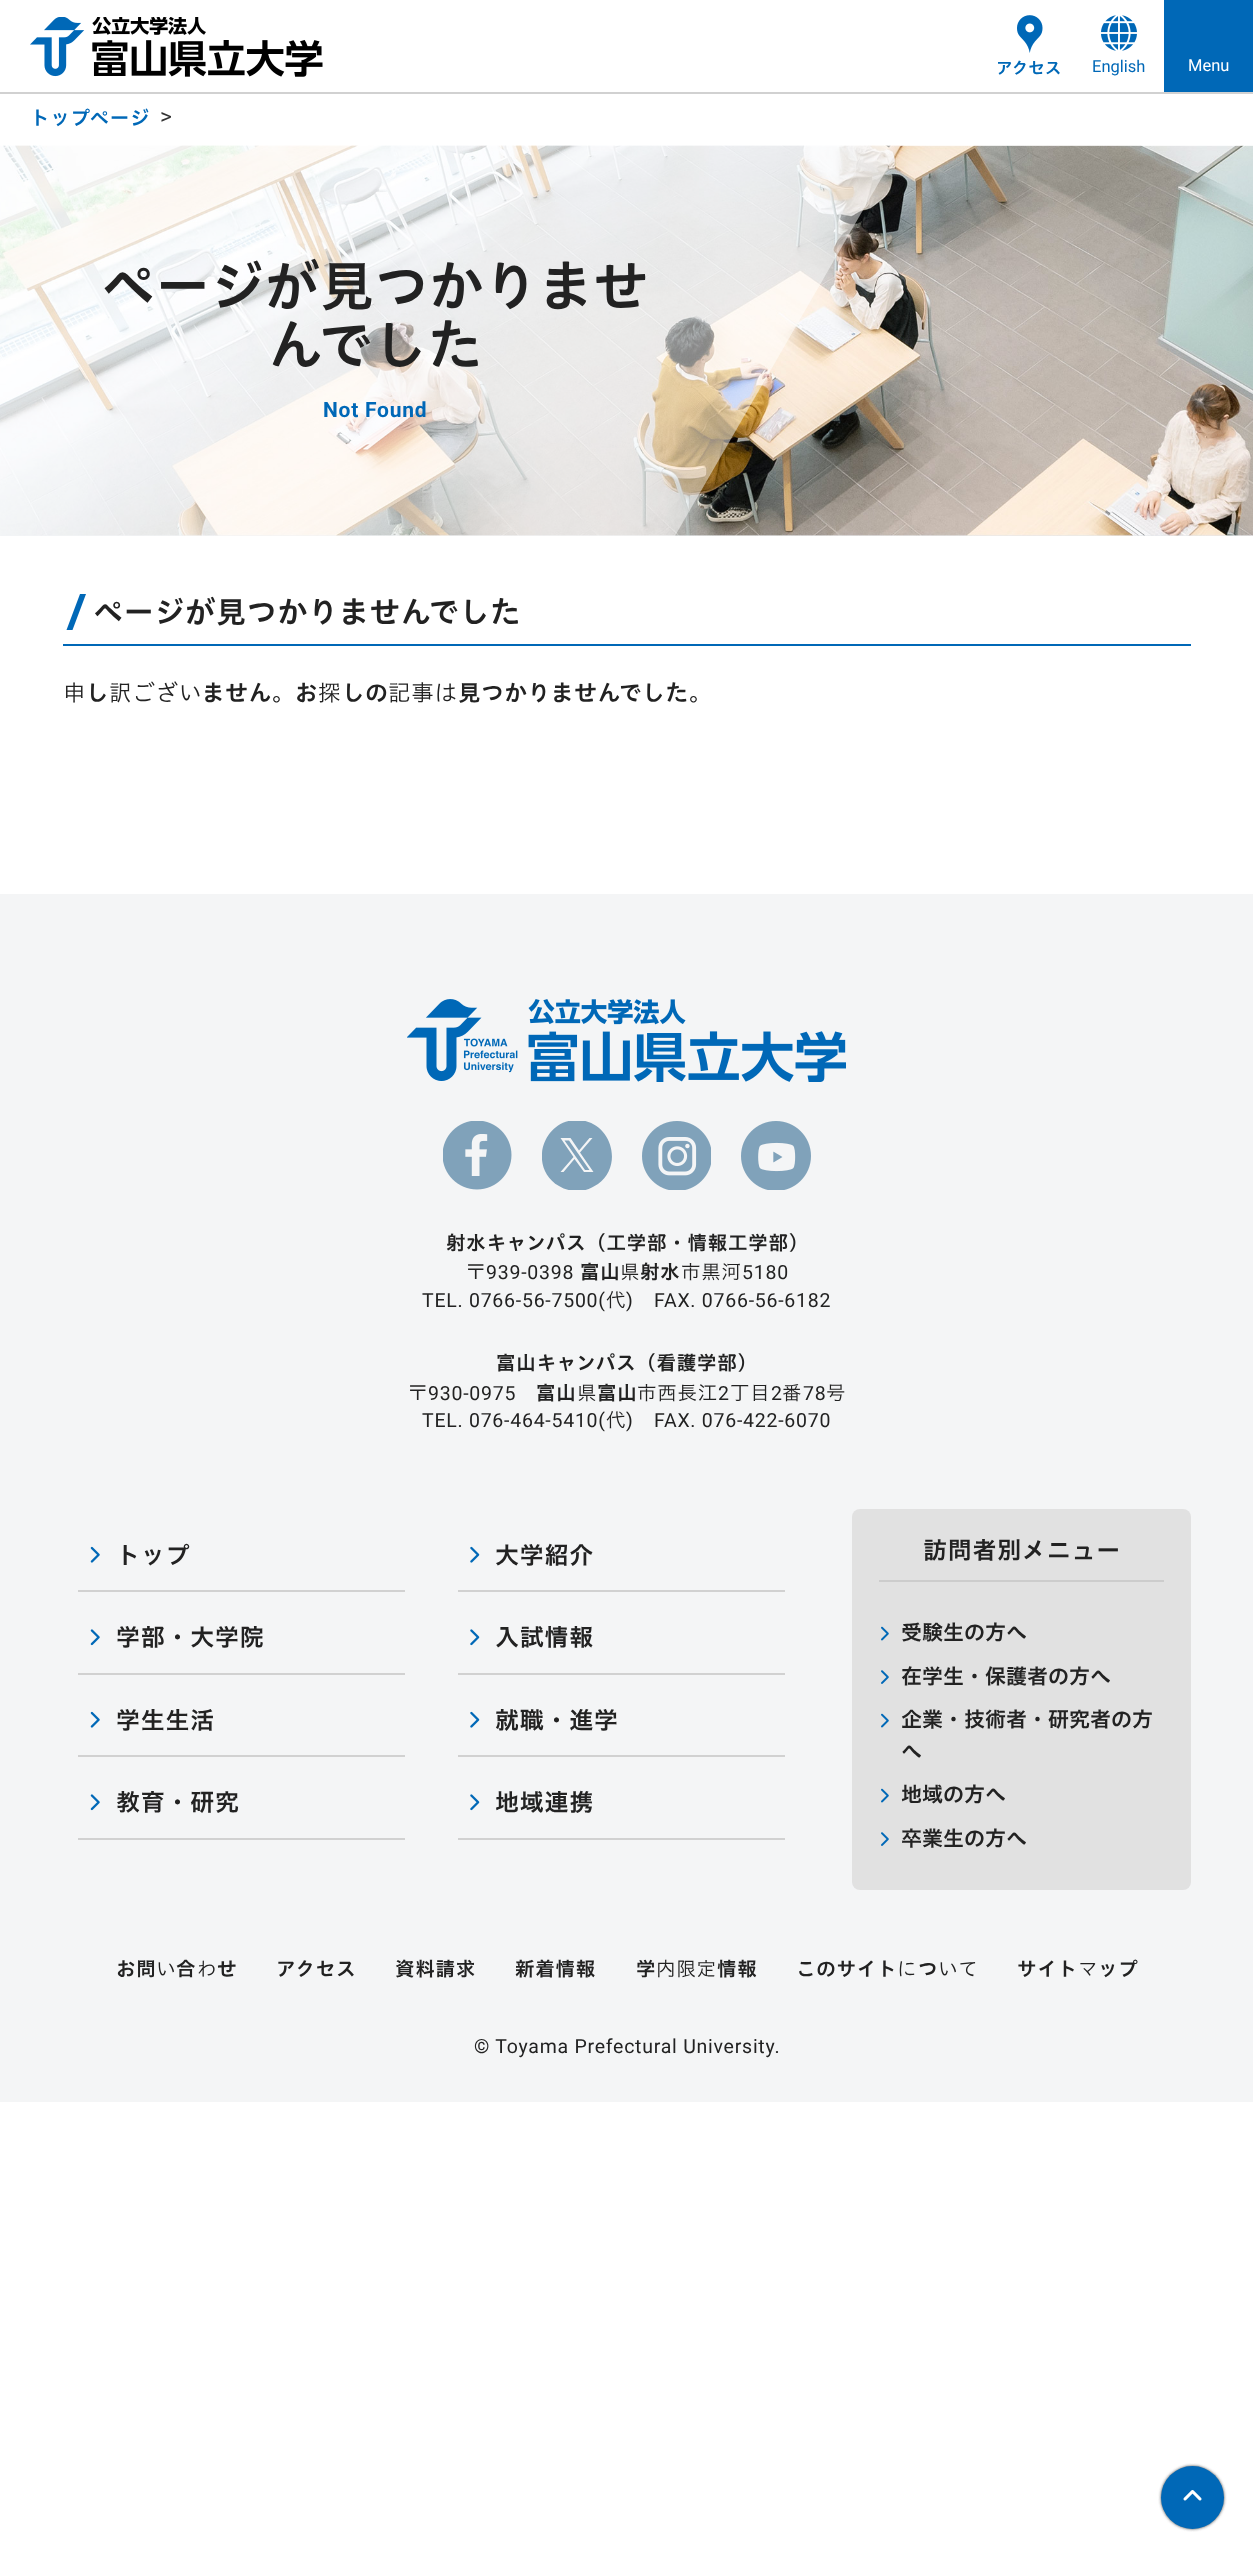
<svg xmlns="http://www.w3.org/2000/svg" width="1253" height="2558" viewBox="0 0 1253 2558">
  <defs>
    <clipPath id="clip1"><rect x="542" y="1121" width="70" height="69"/></clipPath>
    <filter id="blur1" x="-50%" y="-200%" width="200%" height="500%"><feGaussianBlur stdDeviation="1.5"/></filter>
  </defs>
  <rect width="100%" height="100%" fill="#ffffff"/>
  <rect x="0" y="92" width="1253" height="2" fill="#d1d1d1"/>
  <image x="30" y="17" width="293" height="60" href="img1.png"/>
  <image x="1017" y="15" width="26" height="38" href="img2.png"/>
  <text x="996" y="74" font-family="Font" font-size="16.5" font-weight="600" fill="#0068b7">アクセス</text>
  <image x="1101" y="15" width="36" height="36" href="img3.png"/>
  <text x="1092" y="72" font-family="Roboto" font-size="16.5" fill="#0068b7">English</text>
  <rect x="1164" y="0" width="89" height="92" fill="#0068b7"/>
  <text x="1188" y="71" font-family="Roboto" font-size="16.5" fill="#ffffff">Menu</text>
  <text x="30" y="125" font-family="Font" font-size="19.5" font-weight="600" letter-spacing="0.75" fill="#0068b7">トップページ</text>
  <text x="160" y="124" font-family="Roboto" font-size="22.5" letter-spacing="0.75" fill="#333333">&gt;</text>
  <rect x="0" y="535" width="1253" height="1" fill="#dfe3e6"/>
  <image x="0" y="145" width="1253" height="391" href="img4.png"/>
  <rect x="0" y="146" width="675" height="390" fill="#ffffff" fill-opacity="0.5"/>
  <text x="101" y="306" font-family="Font" font-size="54" font-weight="600" letter-spacing="0.75" fill="#222222">ページが見つかりませ</text>
  <text x="268" y="365" font-family="Font" font-size="54" font-weight="600" letter-spacing="0.75" fill="#222222">んでした</text>
  <text x="323" y="417" font-family="Roboto" font-size="21" font-weight="bold" letter-spacing="0.75" fill="#0068b7">Not Found</text>
  <path d="M675 146H900L675 536Z" fill="#ffffff" fill-opacity="0.5"/>
  <rect x="63" y="644" width="1128" height="2" fill="#0068b7"/>
  <path d="M80 594H86L72.5 630H66.5Z" fill="#0068b7"/>
  <text x="93" y="623" font-family="Font" font-size="30" font-weight="600" letter-spacing="0.75" fill="#222222">ページが見つかりませんでした</text>
  <text x="63" y="701" font-family="Font" font-size="22.5" font-weight="300" letter-spacing="0.75" fill="#222222">申</text>
  <text x="86" y="701" font-family="Font" font-size="22.5" font-weight="600" letter-spacing="0.75" fill="#222222">し</text>
  <text x="109" y="701" font-family="Font" font-size="22.5" font-weight="300" letter-spacing="0.75" fill="#222222">訳ござい</text>
  <text x="202" y="701" font-family="Font" font-size="22.5" font-weight="600" letter-spacing="0.75" fill="#222222">ません</text>
  <text x="272" y="701" font-family="Font" font-size="22.5" font-weight="300" letter-spacing="0.75" fill="#222222">。</text>
  <text x="295" y="701" font-family="Font" font-size="22.5" font-weight="600" letter-spacing="0.75" fill="#222222">お</text>
  <text x="318" y="701" font-family="Font" font-size="22.5" font-weight="300" letter-spacing="0.75" fill="#222222">探</text>
  <text x="342" y="701" font-family="Font" font-size="22.5" font-weight="600" letter-spacing="0.75" fill="#222222">しの</text>
  <text x="388" y="701" font-family="Font" font-size="22.5" font-weight="300" letter-spacing="0.75" fill="#222222">記事は</text>
  <text x="458" y="701" font-family="Font" font-size="22.5" font-weight="600" letter-spacing="0.75" fill="#222222">見つかりませんでした</text>
  <text x="689" y="701" font-family="Font" font-size="22.5" font-weight="300" letter-spacing="0.75" fill="#222222">。</text>
  <rect x="0" y="894" width="1253" height="1208" fill="#f4f5f6"/>
  <image x="407" y="999" width="439" height="83" href="img5.png"/>
  <image x="443" y="1121" width="69" height="69" href="img6.png"/>
  <g clip-path="url(#clip1)">
    <path d="M577 1120C610 1120 625 1164 598 1184C592 1188 585 1191 579 1191C572 1191 565 1190 559 1186C528 1168 542 1120 577 1120Z" fill="#80a2ba" fill-rule="evenodd"/>
  </g>
  <path d="M580 1152.5L592.5 1138H589.5L579 1150.5L570.5 1138H560.5L573.5 1157L560.5 1172H563.5L574.5 1159L584 1172H593.5ZM576 1157L564.5 1140.5H569L589.5 1170H585Z" fill="#f4f5f6" fill-rule="evenodd"/>
  <image x="642" y="1121" width="69" height="69" href="img7.png"/>
  <image x="741" y="1121" width="70" height="69" href="img8.png"/>
  <text x="446" y="1250" font-family="Font" font-size="19.5" font-weight="600" letter-spacing="0.75" fill="#222222">射水キャンパス（工学部・情報工学部）</text>
  <text x="466" y="1279" font-family="Font" font-size="19.5" font-weight="300" letter-spacing="0.75" fill="#222222">〒</text>
  <text x="486" y="1279" font-family="Roboto" font-size="19.5" letter-spacing="0.75" fill="#222222">939-0398</text>
  <text x="580" y="1279" font-family="Font" font-size="19.5" font-weight="600" letter-spacing="0.75" fill="#222222">富山</text>
  <text x="620" y="1279" font-family="Font" font-size="19.5" font-weight="300" letter-spacing="0.75" fill="#222222">県</text>
  <text x="640" y="1279" font-family="Font" font-size="19.5" font-weight="600" letter-spacing="0.75" fill="#222222">射水</text>
  <text x="681" y="1279" font-family="Font" font-size="19.5" font-weight="300" letter-spacing="0.75" fill="#222222">市黒河</text>
  <text x="742" y="1279" font-family="Roboto" font-size="19.5" letter-spacing="0.75" fill="#222222">5180</text>
  <text x="422" y="1307" font-family="Roboto" font-size="19.5" letter-spacing="0.75" fill="#222222">TEL. 0766-56-7500(</text>
  <text x="606" y="1307" font-family="Font" font-size="19.5" font-weight="300" letter-spacing="0.75" fill="#222222">代</text>
  <text x="626" y="1307" font-family="Roboto" font-size="19.5" letter-spacing="0.75" fill="#222222">)</text>
  <text x="654" y="1307" font-family="Roboto" font-size="19.5" letter-spacing="0.75" fill="#222222">FAX. 0766-56-6182</text>
  <text x="496" y="1370" font-family="Font" font-size="19.5" font-weight="600" letter-spacing="0.75" fill="#222222">富山キャンパス（看護学部）</text>
  <text x="408" y="1400" font-family="Font" font-size="19.5" font-weight="300" letter-spacing="0.75" fill="#222222">〒</text>
  <text x="428" y="1400" font-family="Roboto" font-size="19.5" letter-spacing="0.75" fill="#222222">930-0975</text>
  <text x="536" y="1400" font-family="Font" font-size="19.5" font-weight="600" letter-spacing="0.75" fill="#222222">富山</text>
  <text x="577" y="1400" font-family="Font" font-size="19.5" font-weight="300" letter-spacing="0.75" fill="#222222">県</text>
  <text x="597" y="1400" font-family="Font" font-size="19.5" font-weight="600" letter-spacing="0.75" fill="#222222">富山</text>
  <text x="637" y="1400" font-family="Font" font-size="19.5" font-weight="300" letter-spacing="0.75" fill="#222222">市西長江</text>
  <text x="718" y="1400" font-family="Roboto" font-size="19.5" letter-spacing="0.75" fill="#222222">2</text>
  <text x="730" y="1400" font-family="Font" font-size="19.5" font-weight="300" letter-spacing="0.75" fill="#222222">丁目</text>
  <text x="771" y="1400" font-family="Roboto" font-size="19.5" letter-spacing="0.75" fill="#222222">2</text>
  <text x="782" y="1400" font-family="Font" font-size="19.5" font-weight="300" letter-spacing="0.75" fill="#222222">番</text>
  <text x="803" y="1400" font-family="Roboto" font-size="19.5" letter-spacing="0.75" fill="#222222">78</text>
  <text x="826" y="1400" font-family="Font" font-size="19.5" font-weight="300" letter-spacing="0.75" fill="#222222">号</text>
  <text x="422" y="1427" font-family="Roboto" font-size="19.5" letter-spacing="0.75" fill="#222222">TEL. 076-464-5410(</text>
  <text x="606" y="1427" font-family="Font" font-size="19.5" font-weight="300" letter-spacing="0.75" fill="#222222">代</text>
  <text x="626" y="1427" font-family="Roboto" font-size="19.5" letter-spacing="0.75" fill="#222222">)</text>
  <text x="654" y="1427" font-family="Roboto" font-size="19.5" letter-spacing="0.75" fill="#222222">FAX. 076-422-6070</text>
  <rect x="78" y="1590" width="327" height="2" fill="#d1d1d1"/>
  <image x="90" y="1546" width="10" height="17" href="img9.png"/>
  <text x="116" y="1564" font-family="Font" font-size="24" font-weight="600" letter-spacing="0.75" fill="#222222">トップ</text>
  <rect x="458" y="1590" width="327" height="2" fill="#d1d1d1"/>
  <image x="470" y="1546" width="10" height="17" href="img10.png"/>
  <text x="495" y="1564" font-family="Font" font-size="24" font-weight="600" letter-spacing="0.75" fill="#222222">大学紹介</text>
  <rect x="78" y="1673" width="327" height="2" fill="#d1d1d1"/>
  <image x="90" y="1629" width="10" height="17" href="img11.png"/>
  <text x="116" y="1646" font-family="Font" font-size="24" font-weight="600" letter-spacing="0.75" fill="#222222">学部・大学院</text>
  <rect x="458" y="1673" width="327" height="2" fill="#d1d1d1"/>
  <image x="470" y="1629" width="10" height="17" href="img12.png"/>
  <text x="495" y="1646" font-family="Font" font-size="24" font-weight="600" letter-spacing="0.75" fill="#222222">入試情報</text>
  <rect x="78" y="1755" width="327" height="2" fill="#d1d1d1"/>
  <image x="90" y="1711" width="10" height="17" href="img9.png"/>
  <text x="116" y="1729" font-family="Font" font-size="24" font-weight="600" letter-spacing="0.75" fill="#222222">学生生活</text>
  <rect x="458" y="1755" width="327" height="2" fill="#d1d1d1"/>
  <image x="470" y="1711" width="10" height="17" href="img10.png"/>
  <text x="495" y="1729" font-family="Font" font-size="24" font-weight="600" letter-spacing="0.75" fill="#222222">就職・進学</text>
  <rect x="78" y="1838" width="327" height="2" fill="#d1d1d1"/>
  <image x="90" y="1794" width="10" height="17" href="img11.png"/>
  <text x="116" y="1811" font-family="Font" font-size="24" font-weight="600" letter-spacing="0.75" fill="#222222">教育・研究</text>
  <rect x="458" y="1838" width="327" height="2" fill="#d1d1d1"/>
  <image x="470" y="1794" width="10" height="17" href="img12.png"/>
  <text x="495" y="1811" font-family="Font" font-size="24" font-weight="600" letter-spacing="0.75" fill="#222222">地域連携</text>
  <rect x="852" y="1509" width="339" height="381" rx="8" fill="#e1e1e1"/>
  <rect x="879" y="1580" width="285" height="2" fill="#cccccc"/>
  <text x="923" y="1559" font-family="Font" font-size="24" font-weight="600" letter-spacing="0.75" fill="#222222">訪問者別メニュー</text>
  <image x="881" y="1626" width="8" height="15" href="img13.png"/>
  <text x="901" y="1640" font-family="Font" font-size="21" font-weight="600" fill="#222222">受験生の方へ</text>
  <image x="881" y="1670" width="8" height="14" href="img14.png"/>
  <text x="901" y="1684" font-family="Font" font-size="21" font-weight="600" fill="#222222">在学生・保護者の方へ</text>
  <image x="881" y="1713" width="8" height="15" href="img13.png"/>
  <text x="901" y="1727" font-family="Font" font-size="21" font-weight="600" fill="#222222">企業・技術者・研究者の方</text>
  <text x="901" y="1759" font-family="Font" font-size="21" font-weight="600" fill="#222222">へ</text>
  <image x="881" y="1788" width="8" height="15" href="img13.png"/>
  <text x="901" y="1802" font-family="Font" font-size="21" font-weight="600" fill="#222222">地域の方へ</text>
  <image x="881" y="1832" width="8" height="14" href="img14.png"/>
  <text x="901" y="1846" font-family="Font" font-size="21" font-weight="600" fill="#222222">卒業生の方へ</text>
  <text x="116" y="1976" font-family="Font" font-size="19.5" font-weight="600" letter-spacing="0.75" fill="#222222">お問</text>
  <text x="156" y="1976" font-family="Font" font-size="19.5" font-weight="300" letter-spacing="0.75" fill="#222222">い</text>
  <text x="176" y="1976" font-family="Font" font-size="19.5" font-weight="600" letter-spacing="0.75" fill="#222222">合</text>
  <text x="197" y="1976" font-family="Font" font-size="19.5" font-weight="300" letter-spacing="0.75" fill="#222222">わ</text>
  <text x="217" y="1976" font-family="Font" font-size="19.5" font-weight="600" letter-spacing="0.75" fill="#222222">せ</text>
  <text x="276" y="1976" font-family="Font" font-size="19.5" font-weight="600" letter-spacing="0.75" fill="#222222">アクセス</text>
  <text x="395" y="1976" font-family="Font" font-size="19.5" font-weight="600" letter-spacing="0.75" fill="#222222">資料請求</text>
  <text x="515" y="1976" font-family="Font" font-size="19.5" font-weight="600" letter-spacing="0.75" fill="#222222">新着情報</text>
  <text x="636" y="1976" font-family="Font" font-size="19.5" font-weight="600" letter-spacing="0.75" fill="#222222">学</text>
  <text x="656" y="1976" font-family="Font" font-size="19.5" font-weight="300" letter-spacing="0.75" fill="#222222">内限定</text>
  <text x="717" y="1976" font-family="Font" font-size="19.5" font-weight="600" letter-spacing="0.75" fill="#222222">情報</text>
  <text x="796" y="1976" font-family="Font" font-size="19.5" font-weight="600" letter-spacing="0.75" fill="#222222">このサイト</text>
  <text x="897" y="1976" font-family="Font" font-size="19.5" font-weight="300" letter-spacing="0.75" fill="#222222">に</text>
  <text x="918" y="1976" font-family="Font" font-size="19.5" font-weight="600" letter-spacing="0.75" fill="#222222">つ</text>
  <text x="938" y="1976" font-family="Font" font-size="19.5" font-weight="300" letter-spacing="0.75" fill="#222222">いて</text>
  <text x="1017" y="1976" font-family="Font" font-size="19.5" font-weight="600" letter-spacing="0.75" fill="#222222">サイト</text>
  <text x="1078" y="1976" font-family="Font" font-size="19.5" font-weight="300" letter-spacing="0.75" fill="#222222">マ</text>
  <text x="1098" y="1976" font-family="Font" font-size="19.5" font-weight="600" letter-spacing="0.75" fill="#222222">ップ</text>
  <text x="474" y="2053" font-family="Roboto" font-size="19.5" letter-spacing="0.75" fill="#222222">© Toyama Prefectural University.</text>
  <rect x="1161" y="2466" width="63" height="63" rx="31.5" fill="#444444" filter="url(#blur1)"/>
  <circle cx="1192.5" cy="2497.5" r="31.5" fill="#0068b7"/>
  <image x="1183" y="2490" width="19" height="11" href="img15.png"/>
</svg>
